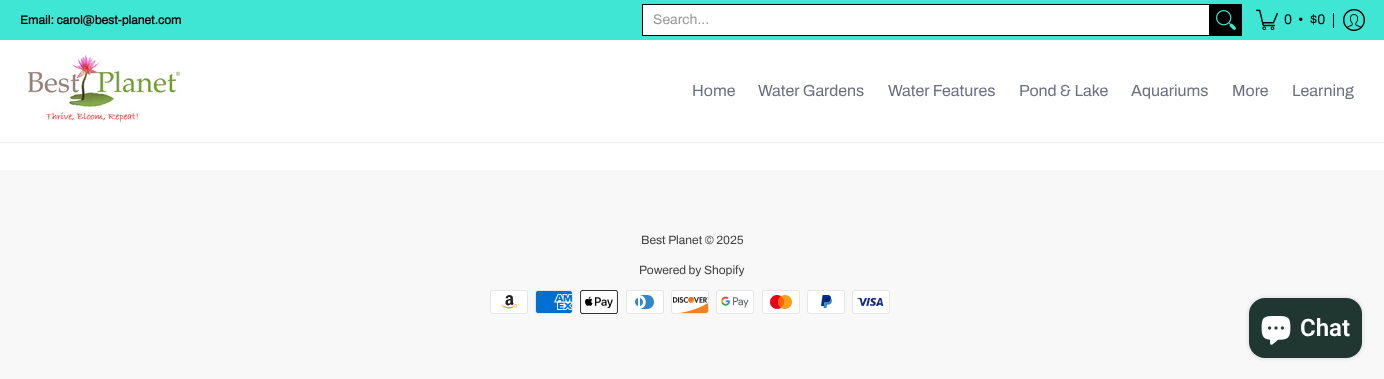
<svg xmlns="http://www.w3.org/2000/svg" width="1384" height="379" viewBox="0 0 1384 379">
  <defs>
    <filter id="blur1" x="-50%" y="-200%" width="200%" height="500%"><feGaussianBlur stdDeviation="2.5"/></filter>
  </defs>
  <rect width="100%" height="100%" fill="#ffffff"/>
  <rect x="0" y="0" width="1384" height="40" fill="#3fe6d3"/>
  <text x="20" y="24" font-family="Archivo" font-size="12" font-weight="bold" fill="#000000">Email: carol@best-planet.com</text>
  <rect x="642.5" y="4.5" width="567" height="31" fill="#ffffff" stroke="#000000"/>
  <text x="653" y="24" font-family="Archivo" font-size="14" fill="#989898">Search...</text>
  <rect x="1210" y="4" width="32" height="32" fill="#000000"/>
  <image x="1216" y="10" width="20" height="20" href="img1.png"/>
  <image x="1256" y="9" width="22" height="22" href="img2.png"/>
  <text x="1284" y="24" font-family="Archivo" font-size="14" fill="#000000">0</text>
  <text x="1298" y="24" font-family="Archivo" font-size="14" fill="#000000">•</text>
  <text x="1310" y="24" font-family="Archivo" font-size="14" fill="#000000">$0</text>
  <rect x="1333" y="13" width="1" height="15" fill="#000000"/>
  <image x="1343" y="9" width="22" height="22" href="img3.png"/>
  <rect x="0" y="142" width="1384" height="1" fill="#edeef4"/>
  <image x="27" y="52" width="154" height="71" href="img4.png"/>
  <text x="692" y="96" font-family="Archivo" font-size="16" fill="#6b6f81">Home</text>
  <text x="758" y="96" font-family="Archivo" font-size="16" fill="#6b6f81">Water Gardens</text>
  <text x="888" y="96" font-family="Archivo" font-size="16" fill="#6b6f81">Water Features</text>
  <text x="1019" y="96" font-family="Archivo" font-size="16" fill="#6b6f81">Pond &amp; Lake</text>
  <text x="1131" y="96" font-family="Archivo" font-size="16" fill="#6b6f81">Aquariums</text>
  <text x="1232" y="96" font-family="Archivo" font-size="16" fill="#6b6f81">More</text>
  <text x="1292" y="96" font-family="Archivo" font-size="16" fill="#6b6f81">Learning</text>
  <rect x="0" y="170" width="1384" height="209" fill="#f8f8f8"/>
  <text x="641" y="244" font-family="Archivo" font-size="12" fill="#404040">Best Planet © 2025</text>
  <text x="639" y="274" font-family="Archivo" font-size="12" fill="#404040">Powered by Shopify</text>
  <image x="490" y="290" width="38" height="24" href="img5.png"/>
  <image x="535" y="290" width="38" height="24" href="img6.png"/>
  <image x="580" y="290" width="38" height="24" href="img7.png"/>
  <image x="626" y="290" width="38" height="24" href="img8.png"/>
  <image x="671" y="290" width="38" height="24" href="img9.png"/>
  <image x="716" y="290" width="38" height="24" href="img10.png"/>
  <image x="762" y="290" width="38" height="24" href="img11.png"/>
  <image x="807" y="290" width="38" height="24" href="img12.png"/>
  <image x="852" y="290" width="38" height="24" href="img13.png"/>
  <rect x="1249" y="298" width="113" height="60" rx="16" fill="#000000" fill-opacity="0.15" filter="url(#blur1)"/>
  <rect x="1249" y="298" width="113" height="60" rx="16" fill="#203631"/>
  <image x="1261" y="316" width="30" height="29" href="img14.png"/>
  <text x="1300" y="336" font-family="Roboto" font-size="24" font-weight="600" fill="#ffffff">Chat</text>
</svg>
